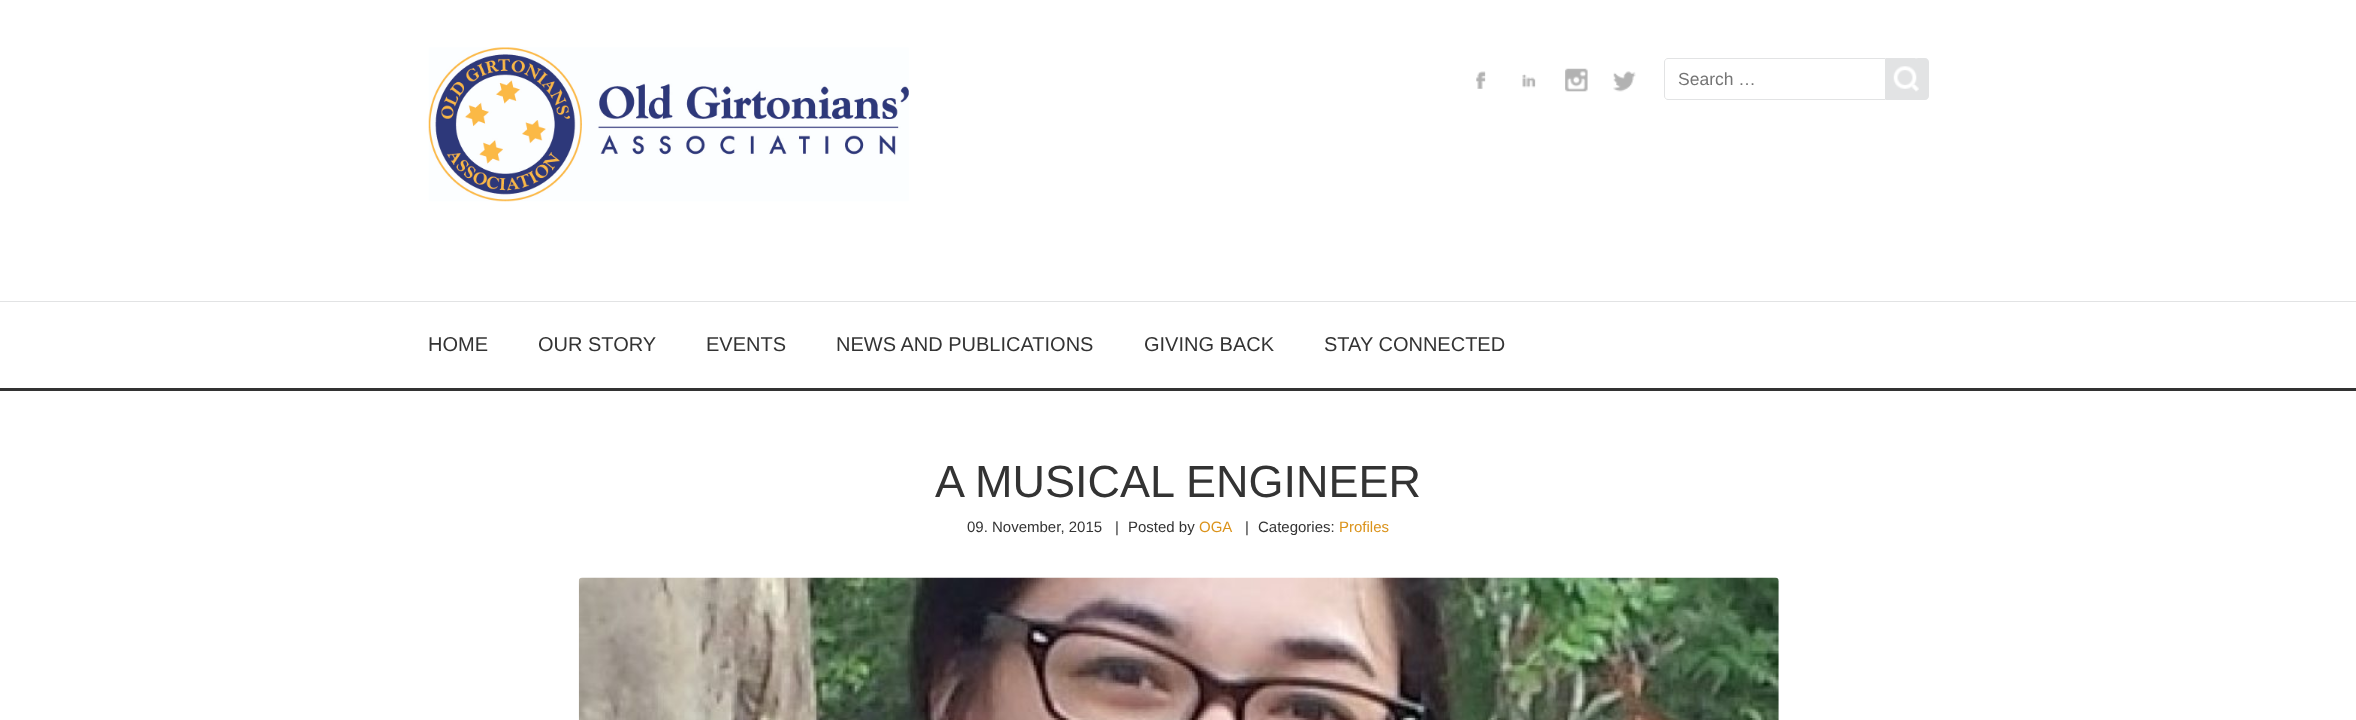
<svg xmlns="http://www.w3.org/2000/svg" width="2356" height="720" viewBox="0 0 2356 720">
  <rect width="100%" height="100%" fill="#ffffff"/>
  <rect x="0" y="388" width="2356" height="3" fill="#333333"/>
  <image x="428" y="47" width="481" height="155" href="img1.png"/>
  <image x="1476" y="71" width="10" height="18" href="img2.png"/>
  <image x="1522" y="74" width="14" height="14" href="img3.png"/>
  <image x="1565" y="68" width="23" height="24" href="img4.png"/>
  <image x="1613" y="71" width="23" height="21" href="img5.png"/>
  <path d="M1886 58H1925C1927 58 1929 60 1929 62V96C1929 98 1927 100 1925 100H1886Z" fill="#e2e3e4"/>
  <path d="M1668 58.5H1885.5V99.5H1668C1666 99.5 1664.5 98 1664.5 96V62C1664.5 60 1666 58.5 1668 58.5Z" fill="none" stroke="#e2e3e4"/>
  <text x="1678" y="85" font-family="Liberation Sans" font-size="17.5" fill="#757575">Search …</text>
  <image x="1893" y="58" width="26" height="34" href="img6.png"/>
  <rect x="0" y="301" width="2356" height="1" fill="#e2e3e4"/>
  <text x="428" y="351" font-family="Liberation Sans" font-size="20" fill="#333333">HOME</text>
  <text x="538" y="351" font-family="Liberation Sans" font-size="20" fill="#333333">OUR STORY</text>
  <text x="706" y="351" font-family="Liberation Sans" font-size="20" fill="#333333">EVENTS</text>
  <text x="836" y="351" font-family="Liberation Sans" font-size="20" fill="#333333">NEWS AND PUBLICATIONS</text>
  <text x="1144" y="351" font-family="Liberation Sans" font-size="20" fill="#333333">GIVING BACK</text>
  <text x="1324" y="351" font-family="Liberation Sans" font-size="20" fill="#333333">STAY CONNECTED</text>
  <text x="935" y="497" font-family="Liberation Sans" font-size="45" fill="#333333">A MUSICAL ENGINEER</text>
  <text x="967" y="532" font-family="Liberation Sans" font-size="15" fill="#333333">09. November, 2015</text>
  <text x="1115" y="532" font-family="Liberation Sans" font-size="15" fill="#333333">|</text>
  <text x="1128" y="532" font-family="Liberation Sans" font-size="15" fill="#333333">Posted by</text>
  <text x="1199" y="532" font-family="Liberation Sans" font-size="15" fill="#db931b">OGA</text>
  <text x="1245" y="532" font-family="Liberation Sans" font-size="15" fill="#333333">|</text>
  <text x="1258" y="532" font-family="Liberation Sans" font-size="15" fill="#333333">Categories:</text>
  <text x="1339" y="532" font-family="Liberation Sans" font-size="15" fill="#db931b">Profiles</text>
  <image x="578" y="577" width="1201" height="143" href="img7.png"/>
</svg>
